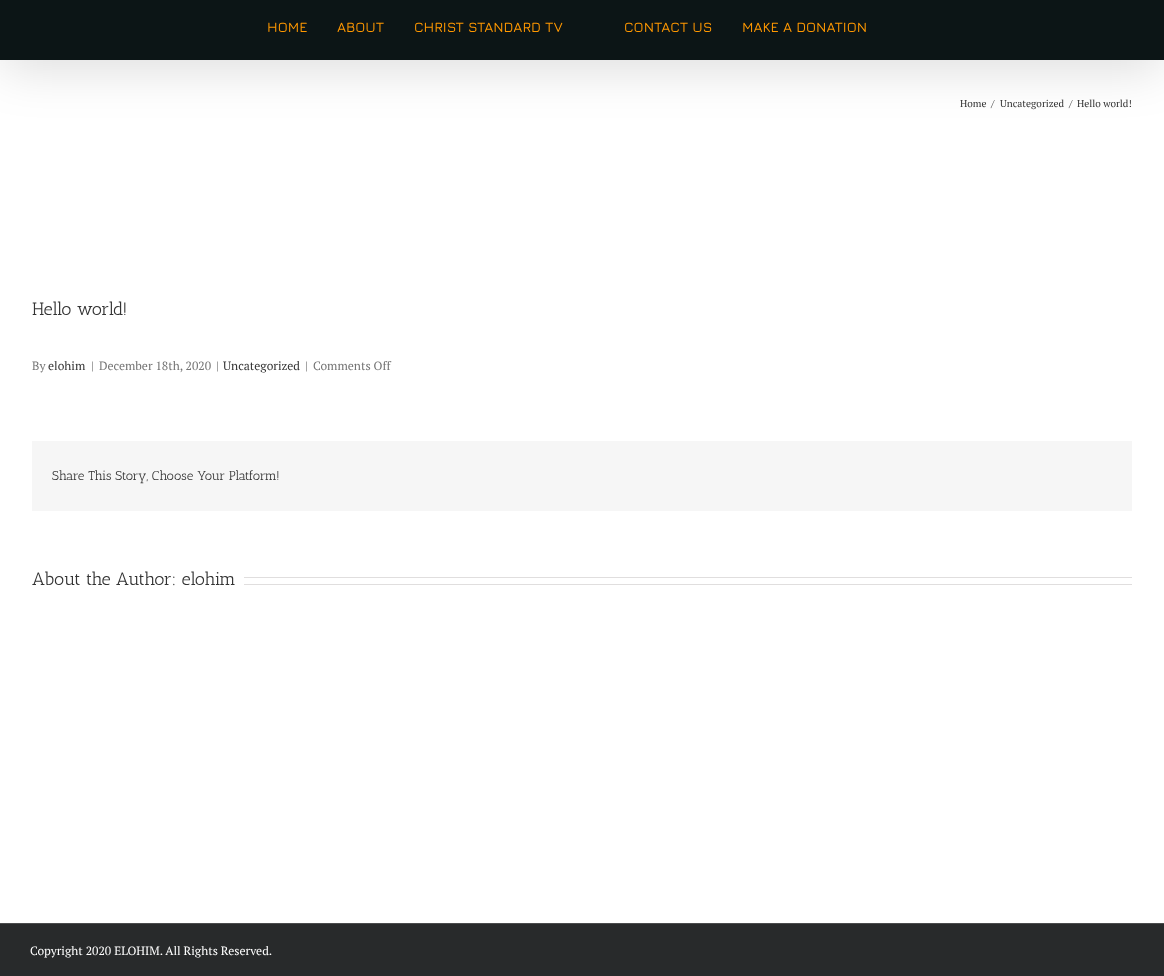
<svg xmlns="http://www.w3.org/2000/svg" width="1164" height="976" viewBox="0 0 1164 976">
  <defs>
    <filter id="blur1" x="-50%" y="-200%" width="200%" height="500%"><feGaussianBlur stdDeviation="25"/></filter>
  </defs>
  <rect width="100%" height="100%" fill="#ffffff"/>
  <rect x="2" y="12" width="1160" height="56" fill="#000000" fill-opacity="0.14" filter="url(#blur1)"/>
  <rect x="0" y="0" width="1164" height="60" fill="#0c1516"/>
  <text x="267" y="32" font-family="Jura" font-size="14" font-weight="600" fill="#ff9800">HOME</text>
  <text x="337" y="32" font-family="Jura" font-size="14" font-weight="600" fill="#ff9800">ABOUT</text>
  <text x="414" y="32" font-family="Jura" font-size="14" font-weight="600" fill="#ff9800">CHRIST STANDARD TV</text>
  <text x="624" y="32" font-family="Jura" font-size="14" font-weight="600" fill="#ff9800">CONTACT US</text>
  <text x="742" y="32" font-family="Jura" font-size="14" font-weight="600" fill="#ff9800">MAKE A DONATION</text>
  <text x="960" y="107" font-family="PT Serif" font-size="10" fill="#333333">Home</text>
  <text x="991" y="107" font-family="PT Serif" font-size="10" fill="#333333">/</text>
  <text x="1000" y="107" font-family="PT Serif" font-size="10" fill="#333333">Uncategorized</text>
  <text x="1069" y="107" font-family="PT Serif" font-size="10" fill="#333333">/</text>
  <text x="1077" y="107" font-family="PT Serif" font-size="10" fill="#333333">Hello world!</text>
  <text x="32" y="315" font-family="Antic Slab" font-size="18" fill="#333333">Hello world!</text>
  <text x="32" y="370" font-family="PT Serif" font-size="12" fill="#747474">By</text>
  <text x="48" y="370" font-family="PT Serif" font-size="12" fill="#333333">elohim</text>
  <text x="91" y="370" font-family="PT Serif" font-size="12" fill="#747474">|</text>
  <text x="99" y="370" font-family="PT Serif" font-size="12" fill="#747474">December 18th, 2020</text>
  <text x="216" y="370" font-family="PT Serif" font-size="12" fill="#747474">|</text>
  <text x="223" y="370" font-family="PT Serif" font-size="12" fill="#333333">Uncategorized</text>
  <text x="305" y="370" font-family="PT Serif" font-size="12" fill="#747474">|</text>
  <text x="313" y="370" font-family="PT Serif" font-size="12" fill="#747474">Comments Off</text>
  <rect x="32" y="441" width="1100" height="70" fill="#f6f6f6"/>
  <text x="52" y="480" font-family="Antic Slab" font-size="13" fill="#333333">Share This Story, Choose Your Platform!</text>
  <text x="32" y="585" font-family="Antic Slab" font-size="18" fill="#333333">About the Author: elohim</text>
  <rect x="244" y="577" width="888" height="1" fill="#e0dede"/>
  <rect x="244" y="584" width="888" height="1" fill="#e0dede"/>
  <rect x="0" y="924" width="1164" height="52" fill="#282a2b"/>
  <rect x="0" y="923" width="1164" height="1" fill="#4b4c4d"/>
  <text x="30" y="955" font-family="PT Serif" font-size="12" fill="#ffffff">Copyright 2020 ELOHIM. All Rights Reserved.</text>
</svg>
